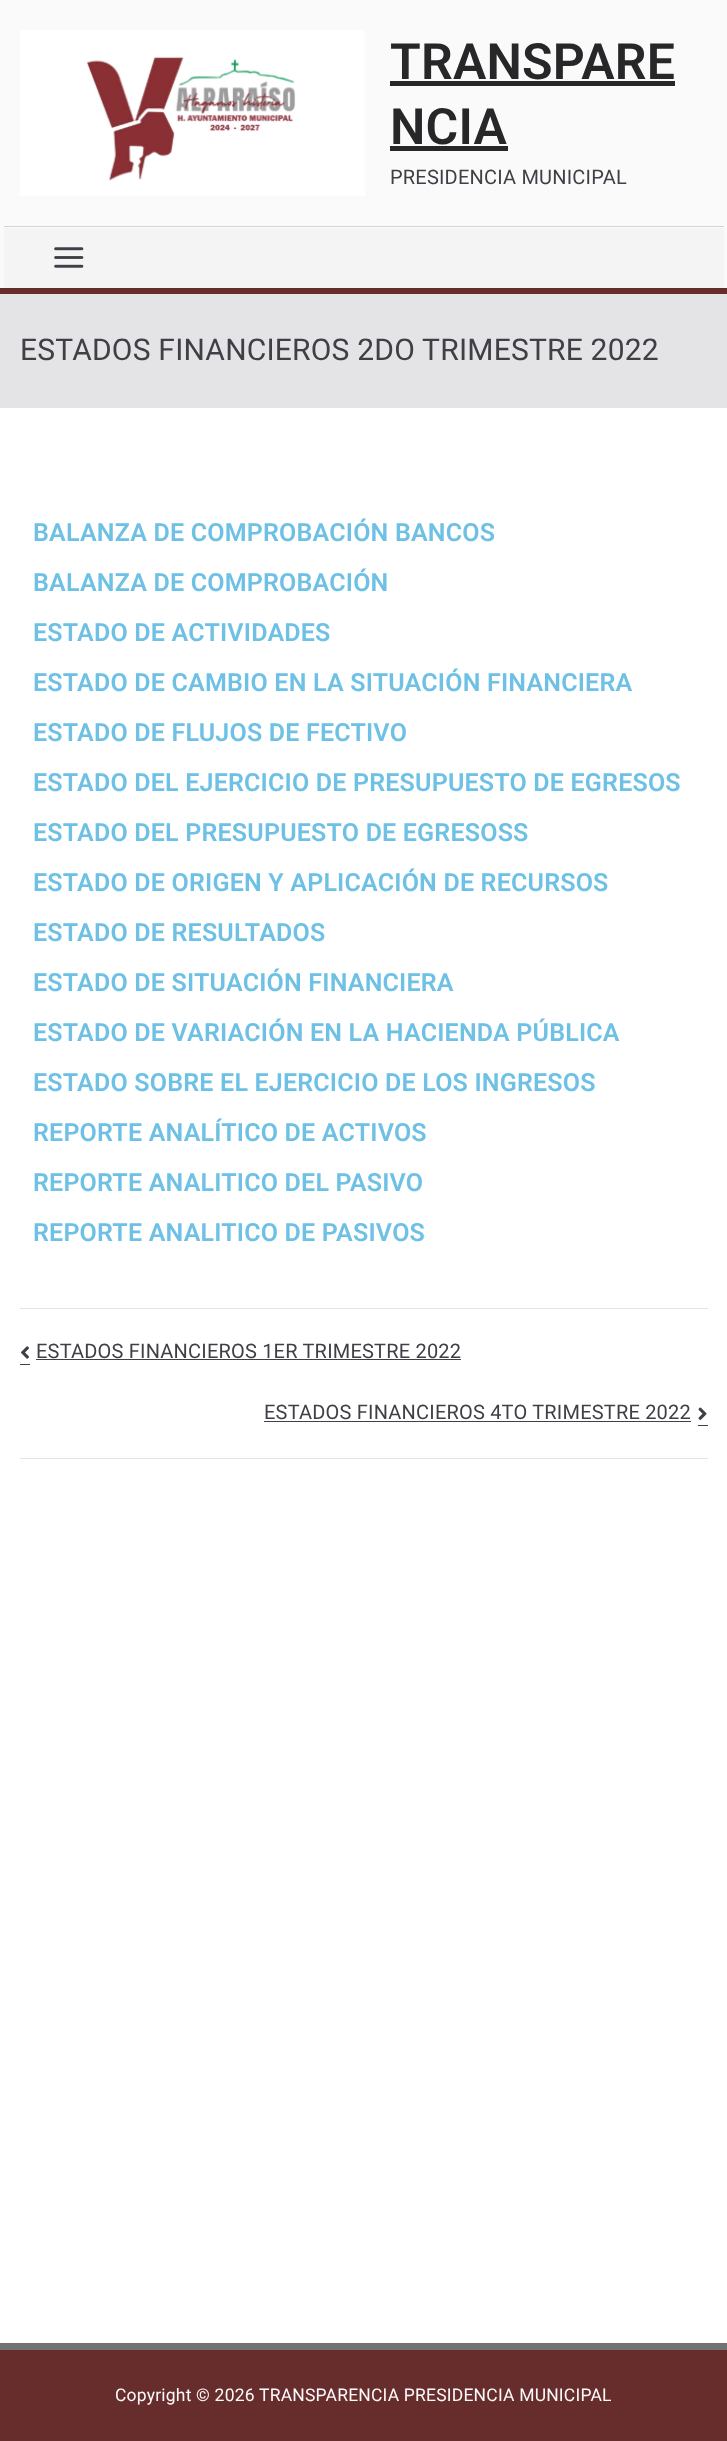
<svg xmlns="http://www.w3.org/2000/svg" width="727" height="2441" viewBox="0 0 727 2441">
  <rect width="100%" height="100%" fill="#fafafa"/>
  <rect x="0" y="288" width="727" height="6" fill="#672c2c"/>
  <image x="20" y="30" width="345" height="166" href="img1.png"/>
  <text x="390" y="79" font-family="Roboto" font-size="50" font-weight="600" letter-spacing="0.2" fill="#27272a">TRANSPARE</text>
  <rect x="390" y="81" width="285" height="5" fill="#27272a"/>
  <text x="390" y="144" font-family="Roboto" font-size="50" font-weight="600" letter-spacing="0.2" fill="#27272a">NCIA</text>
  <rect x="390" y="146" width="118" height="5" fill="#27272a"/>
  <text x="390" y="184" font-family="Roboto" font-size="20" letter-spacing="0.2" fill="#3f3f46">PRESIDENCIA MUNICIPAL</text>
  <rect x="4" y="228" width="720" height="60" fill="#f4f4f5"/>
  <rect x="4" y="226" width="720" height="1" fill="#d4d4d8"/>
  <image x="54" y="247" width="30" height="21" href="img2.png"/>
  <rect x="0" y="294" width="727" height="114" fill="#e4e4e7"/>
  <text x="20" y="360" font-family="Roboto" font-size="30" letter-spacing="0.2" fill="#3f3f46">ESTADOS FINANCIEROS 2DO TRIMESTRE 2022</text>
  <rect x="0" y="408" width="727" height="1935" fill="#ffffff"/>
  <text x="33" y="541" font-family="Roboto" font-size="25" font-weight="600" letter-spacing="0.2" fill="#6ec1e4">BALANZA DE COMPROBACIÓN BANCOS</text>
  <text x="33" y="591" font-family="Roboto" font-size="25" font-weight="600" letter-spacing="0.2" fill="#6ec1e4">BALANZA DE COMPROBACIÓN</text>
  <text x="33" y="641" font-family="Roboto" font-size="25" font-weight="600" letter-spacing="0.2" fill="#6ec1e4">ESTADO DE ACTIVIDADES</text>
  <text x="33" y="691" font-family="Roboto" font-size="25" font-weight="600" letter-spacing="0.2" fill="#6ec1e4">ESTADO DE CAMBIO EN LA SITUACIÓN FINANCIERA</text>
  <text x="33" y="741" font-family="Roboto" font-size="25" font-weight="600" letter-spacing="0.2" fill="#6ec1e4">ESTADO DE FLUJOS DE FECTIVO</text>
  <text x="33" y="791" font-family="Roboto" font-size="25" font-weight="600" letter-spacing="0.2" fill="#6ec1e4">ESTADO DEL EJERCICIO DE PRESUPUESTO DE EGRESOS</text>
  <text x="33" y="841" font-family="Roboto" font-size="25" font-weight="600" letter-spacing="0.2" fill="#6ec1e4">ESTADO DEL PRESUPUESTO DE EGRESOSS</text>
  <text x="33" y="891" font-family="Roboto" font-size="25" font-weight="600" letter-spacing="0.2" fill="#6ec1e4">ESTADO DE ORIGEN Y APLICACIÓN DE RECURSOS</text>
  <text x="33" y="941" font-family="Roboto" font-size="25" font-weight="600" letter-spacing="0.2" fill="#6ec1e4">ESTADO DE RESULTADOS</text>
  <text x="33" y="991" font-family="Roboto" font-size="25" font-weight="600" letter-spacing="0.2" fill="#6ec1e4">ESTADO DE SITUACIÓN FINANCIERA</text>
  <text x="33" y="1041" font-family="Roboto" font-size="25" font-weight="600" letter-spacing="0.2" fill="#6ec1e4">ESTADO DE VARIACIÓN EN LA HACIENDA PÚBLICA</text>
  <text x="33" y="1091" font-family="Roboto" font-size="25" font-weight="600" letter-spacing="0.2" fill="#6ec1e4">ESTADO SOBRE EL EJERCICIO DE LOS INGRESOS</text>
  <text x="33" y="1141" font-family="Roboto" font-size="25" font-weight="600" letter-spacing="0.2" fill="#6ec1e4">REPORTE ANALÍTICO DE ACTIVOS</text>
  <text x="33" y="1191" font-family="Roboto" font-size="25" font-weight="600" letter-spacing="0.2" fill="#6ec1e4">REPORTE ANALITICO DEL PASIVO</text>
  <text x="33" y="1241" font-family="Roboto" font-size="25" font-weight="600" letter-spacing="0.2" fill="#6ec1e4">REPORTE ANALITICO DE PASIVOS</text>
  <rect x="20" y="1308" width="688" height="1" fill="#e4e4e7"/>
  <rect x="20" y="1458" width="688" height="1" fill="#e4e4e7"/>
  <image x="21" y="1346" width="8" height="13" href="img3.png"/>
  <text x="36" y="1358" font-family="Roboto" font-size="20" letter-spacing="0.2" fill="#3f3f46">ESTADOS FINANCIEROS 1ER TRIMESTRE 2022</text>
  <rect x="20" y="1364" width="10" height="1" fill="#3f3f46"/>
  <rect x="36" y="1359" width="425" height="1" fill="#3f3f46"/>
  <text x="264" y="1419" font-family="Roboto" font-size="20" letter-spacing="0.2" fill="#3f3f46">ESTADOS FINANCIEROS 4TO TRIMESTRE 2022</text>
  <rect x="264" y="1421" width="427" height="1" fill="#3f3f46"/>
  <rect x="698" y="1425" width="10" height="1" fill="#3f3f46"/>
  <image x="698" y="1407" width="9" height="13" href="img4.png"/>
  <rect x="0" y="2350" width="727" height="91" fill="#672c2c"/>
  <rect x="0" y="2343" width="727" height="7" fill="#727272"/>
  <text x="115" y="2401" font-family="Roboto" font-size="17.5" letter-spacing="0.2" fill="#fafafa">Copyright © 2026</text>
  <text x="259" y="2401" font-family="Roboto" font-size="17.5" letter-spacing="0.2" fill="#fafafa">TRANSPARENCIA PRESIDENCIA MUNICIPAL</text>
</svg>
